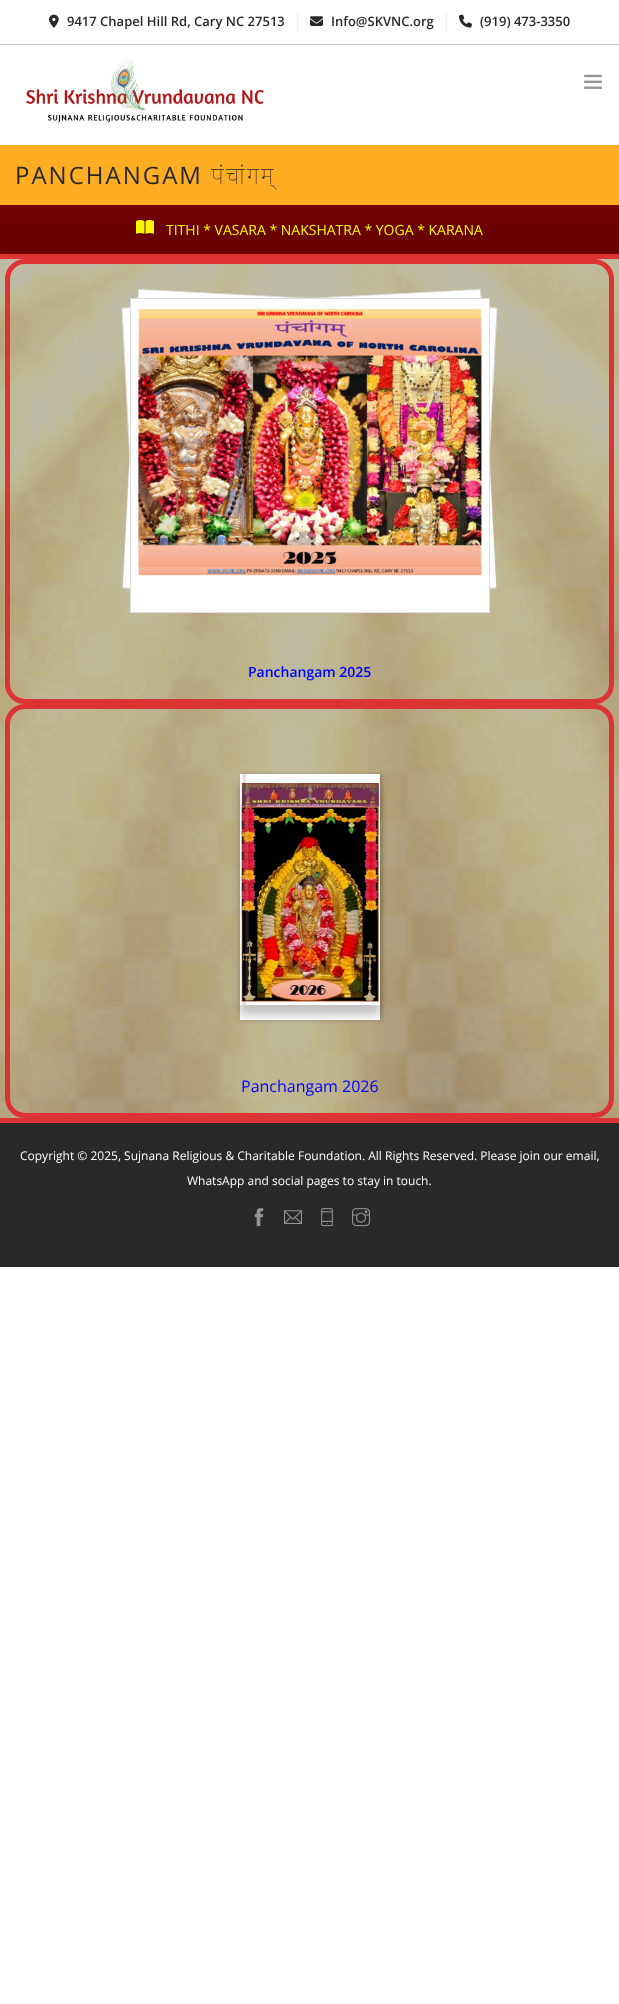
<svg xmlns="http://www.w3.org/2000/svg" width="619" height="2004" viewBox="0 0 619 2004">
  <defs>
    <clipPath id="clip1"><rect x="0" y="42" width="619" height="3"/></clipPath>
    <filter id="blur1" x="-50%" y="-200%" width="200%" height="500%"><feGaussianBlur stdDeviation="2.5"/></filter>
    <clipPath id="clip2"><rect x="0" y="205" width="619" height="49" rx="5"/></clipPath>
    <linearGradient id="g1" gradientUnits="userSpaceOnUse" x1="618" y1="206" x2="618" y2="253"><stop offset="0" stop-color="#750101"/><stop offset="0.5" stop-color="#690101"/><stop offset="1" stop-color="#690101"/></linearGradient>
    <filter id="blur2" x="-50%" y="-200%" width="200%" height="500%"><feGaussianBlur stdDeviation="2"/></filter>
    <clipPath id="clip3"><path d="M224 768H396V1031H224ZM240 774H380V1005H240Z" clip-rule="evenodd"/></clipPath>
    <filter id="blur3" x="-50%" y="-200%" width="200%" height="500%"><feGaussianBlur stdDeviation="5"/></filter>
    <linearGradient id="g2" gradientUnits="userSpaceOnUse" x1="240" y1="890" x2="380" y2="890"><stop offset="0.01" stop-color="#ffffff" stop-opacity="0.15"/><stop offset="0.03" stop-color="#000000" stop-opacity="0.15"/><stop offset="0.05" stop-color="#ffffff" stop-opacity="0.15"/><stop offset="0.07" stop-color="#ffffff" stop-opacity="0"/></linearGradient>
  </defs>
  <rect width="100%" height="100%" fill="#ffffff"/>
  <rect x="0" y="44" width="619" height="1" fill="#cccccc"/>
  <rect x="297" y="12" width="1" height="20" fill="#eeeeee"/>
  <image x="49" y="14" width="10" height="14" href="img1.png"/>
  <text x="67" y="26" font-family="Open Sans" font-size="13" font-weight="600" fill="#292929">9417 Chapel Hill Rd, Cary NC 27513</text>
  <rect x="446" y="12" width="1" height="20" fill="#eeeeee"/>
  <image x="310" y="16" width="13" height="10" href="img2.png"/>
  <text x="331" y="26" font-family="Open Sans" font-size="13" font-weight="600" fill="#292929">Info@SKVNC.org</text>
  <image x="459" y="14" width="13" height="14" href="img3.png"/>
  <text x="480" y="26" font-family="Open Sans" font-size="13" font-weight="600" fill="#292929">(919) 473-3350</text>
  <g clip-path="url(#clip1)">
    <rect x="-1" y="47" width="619" height="100" fill="#cccccc" filter="url(#blur1)"/>
  </g>
  <image x="25" y="59" width="239" height="64" href="img4.png"/>
  <image x="584" y="74" width="18" height="15" href="img5.png"/>
  <rect x="0" y="145" width="619" height="60" fill="#ffae23"/>
  <text x="15" y="184" font-family="Open Sans" font-size="24" letter-spacing="2" fill="#292929">PANCHANGAM</text>
  <text x="211" y="184" font-family="Noto Sans" font-size="24" font-weight="100" letter-spacing="2" fill="#292929">पंचांगम्</text>
  <rect x="0" y="205" width="619" height="49" fill="#750101"/>
  <g clip-path="url(#clip2)">
    <rect x="0" y="206" width="619" height="47" fill="url(#g1)"/>
  </g>
  <image x="136" y="220" width="18" height="14" href="img6.png"/>
  <text x="166" y="235" font-family="Open Sans" font-size="14" fill="#f8f806">TITHI * VASARA * NAKSHATRA * YOGA * KARANA</text>
  <rect x="-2.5" y="256.5" width="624" height="864" fill="none" stroke="#dd3333" stroke-width="5"/>
  <image x="0" y="259" width="619" height="859" href="img7.png"/>
  <rect x="7.5" y="261.5" width="604" height="440" rx="17.5" fill="none" stroke="#dd3333" stroke-width="5"/>
  <path d="M138.5 289.5L497 308L481.5 606.5L123 588Z" fill="none" stroke="#dddddd"/>
  <path d="M139 290L496 309L481 606L123 587Z" fill="#ffffff"/>
  <path d="M141 292L494.5 310.5L479 604L125.5 585.5Z" fill="none" stroke="#ffffff" stroke-width="4"/>
  <image x="143" y="294" width="349" height="68" href="img9.png"/>
  <path d="M122 308L480.5 289.5L496 588L137.5 606.5Z" fill="none" stroke="#dddddd"/>
  <path d="M123 309L480 290L496 587L138 606Z" fill="#ffffff"/>
  <path d="M124.5 310.5L478 292L493.5 585.5L140 604Z" fill="none" stroke="#ffffff" stroke-width="4"/>
  <image x="128" y="294" width="349" height="71" href="img8.png"/>
  <rect x="130.5" y="298.5" width="359" height="314" fill="none" stroke="#dddddd"/>
  <rect x="131" y="299" width="358" height="313" fill="#ffffff"/>
  <image x="135" y="303" width="350" height="274" href="img10.png"/>
  <text x="248" y="677" font-family="Open Sans" font-size="14" font-weight="600" fill="#0000ff">Panchangam 2025</text>
  <rect x="7.5" y="706.5" width="604" height="409" rx="17.5" fill="none" stroke="#dd3333" stroke-width="5"/>
  <rect x="242" y="774" width="140" height="246" fill="#000000" fill-opacity="0.2" filter="url(#blur2)"/>
  <rect x="240" y="774" width="140" height="246" fill="#ffffff"/>
  <g clip-path="url(#clip3)">
    <rect x="240" y="784" width="140" height="231" fill="#000000" fill-opacity="0.24" filter="url(#blur3)"/>
  </g>
  <image x="240" y="783" width="140" height="222" href="img11.png"/>
  <rect x="240" y="774" width="9" height="231" fill="url(#g2)"/>
  <text x="241" y="1092" font-family="Open Sans" font-size="16" fill="#0000ff">Panchangam 2026</text>
  <rect x="0" y="1123" width="619" height="144" fill="#292929"/>
  <text x="20" y="1160" font-family="Open Sans" font-size="12" fill="#fefefe">Copyright © 2025, Sujnana Religious &amp; Charitable Foundation. All Rights Reserved. Please join our email,</text>
  <text x="187" y="1185" font-family="Open Sans" font-size="12" fill="#fefefe">WhatsApp and social pages to stay in touch.</text>
  <image x="254" y="1208" width="10" height="19" href="img12.png"/>
  <image x="284" y="1210" width="18" height="14" href="img13.png"/>
  <image x="321" y="1208" width="12" height="19" href="img14.png"/>
  <image x="352" y="1208" width="18" height="19" href="img15.png"/>
</svg>
